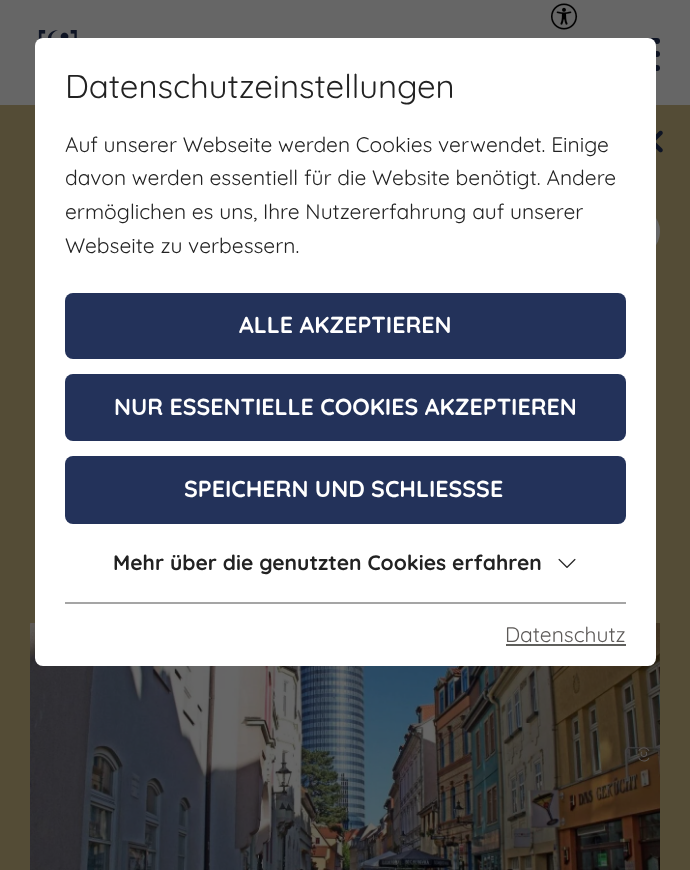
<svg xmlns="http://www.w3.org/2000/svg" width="690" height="870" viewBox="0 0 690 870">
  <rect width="100%" height="100%" fill="#666666"/>
  <image x="551" y="3" width="27" height="27" href="img1.png"/>
  <image x="38" y="30" width="39" height="10" href="img2.png"/>
  <rect x="623" y="38" width="37" height="6" rx="3" fill="#0e1424"/>
  <rect x="623" y="51" width="37" height="6" rx="3" fill="#0e1424"/>
  <rect x="623" y="65" width="37" height="6" rx="3" fill="#0e1424"/>
  <rect x="0" y="105" width="690" height="765" fill="#544c36"/>
  <rect x="420" y="206" width="240" height="51" rx="25.5" fill="#666666"/>
  <image x="30" y="623" width="630" height="247" href="img5.png"/>
  <image x="637" y="665" width="12" height="97" href="img6.png"/>
  <rect x="35" y="38" width="621" height="628" rx="8" fill="#ffffff"/>
  <text x="65" y="98" font-family="Quicksand" font-size="33" fill="#222222">Datenschutzeinstellungen</text>
  <text x="65" y="152" font-family="Quicksand" font-size="21" fill="#222222">Auf unserer Webseite werden Cookies verwendet. Einige</text>
  <text x="65" y="185" font-family="Quicksand" font-size="21" fill="#222222">davon werden essentiell für die Website benötigt. Andere</text>
  <text x="65" y="219" font-family="Quicksand" font-size="21" fill="#222222">ermöglichen es uns, Ihre Nutzererfahrung auf unserer</text>
  <text x="65" y="253" font-family="Quicksand" font-size="21" fill="#222222">Webseite zu verbessern.</text>
  <rect x="65" y="293" width="561" height="66" rx="8" fill="#23325a"/>
  <text x="239" y="333" font-family="Quicksand" font-size="23.1" font-weight="bold" fill="#ffffff">ALLE AKZEPTIEREN</text>
  <rect x="65" y="374" width="561" height="67" rx="8" fill="#23325a"/>
  <text x="114" y="415" font-family="Quicksand" font-size="23.1" font-weight="bold" fill="#ffffff">NUR ESSENTIELLE COOKIES AKZEPTIEREN</text>
  <rect x="65" y="456" width="561" height="68" rx="8" fill="#23325a"/>
  <text x="184" y="497" font-family="Quicksand" font-size="23.1" font-weight="bold" fill="#ffffff">SPEICHERN UND SCHLIESSSE</text>
  <text x="113" y="570" font-family="Quicksand" font-size="21" font-weight="bold" fill="#222222">Mehr über die genutzten Cookies erfahren</text>
  <image x="558" y="558" width="18" height="10" href="img3.png"/>
  <rect x="65" y="602" width="561" height="2" fill="#a5a5a5"/>
  <text x="505" y="642" font-family="Quicksand" font-size="21" fill="#5d5a58">Datenschutz</text>
  <rect x="506" y="644" width="120" height="2" fill="#5f5f5c"/>
  <image x="656" y="130" width="7" height="23" href="img4.png"/>
  <text x="647" y="762" transform="rotate(-90 647 762)" font-family="Quicksand" font-size="12" font-weight="500" fill="#5d5a58">(c)</text>
</svg>
